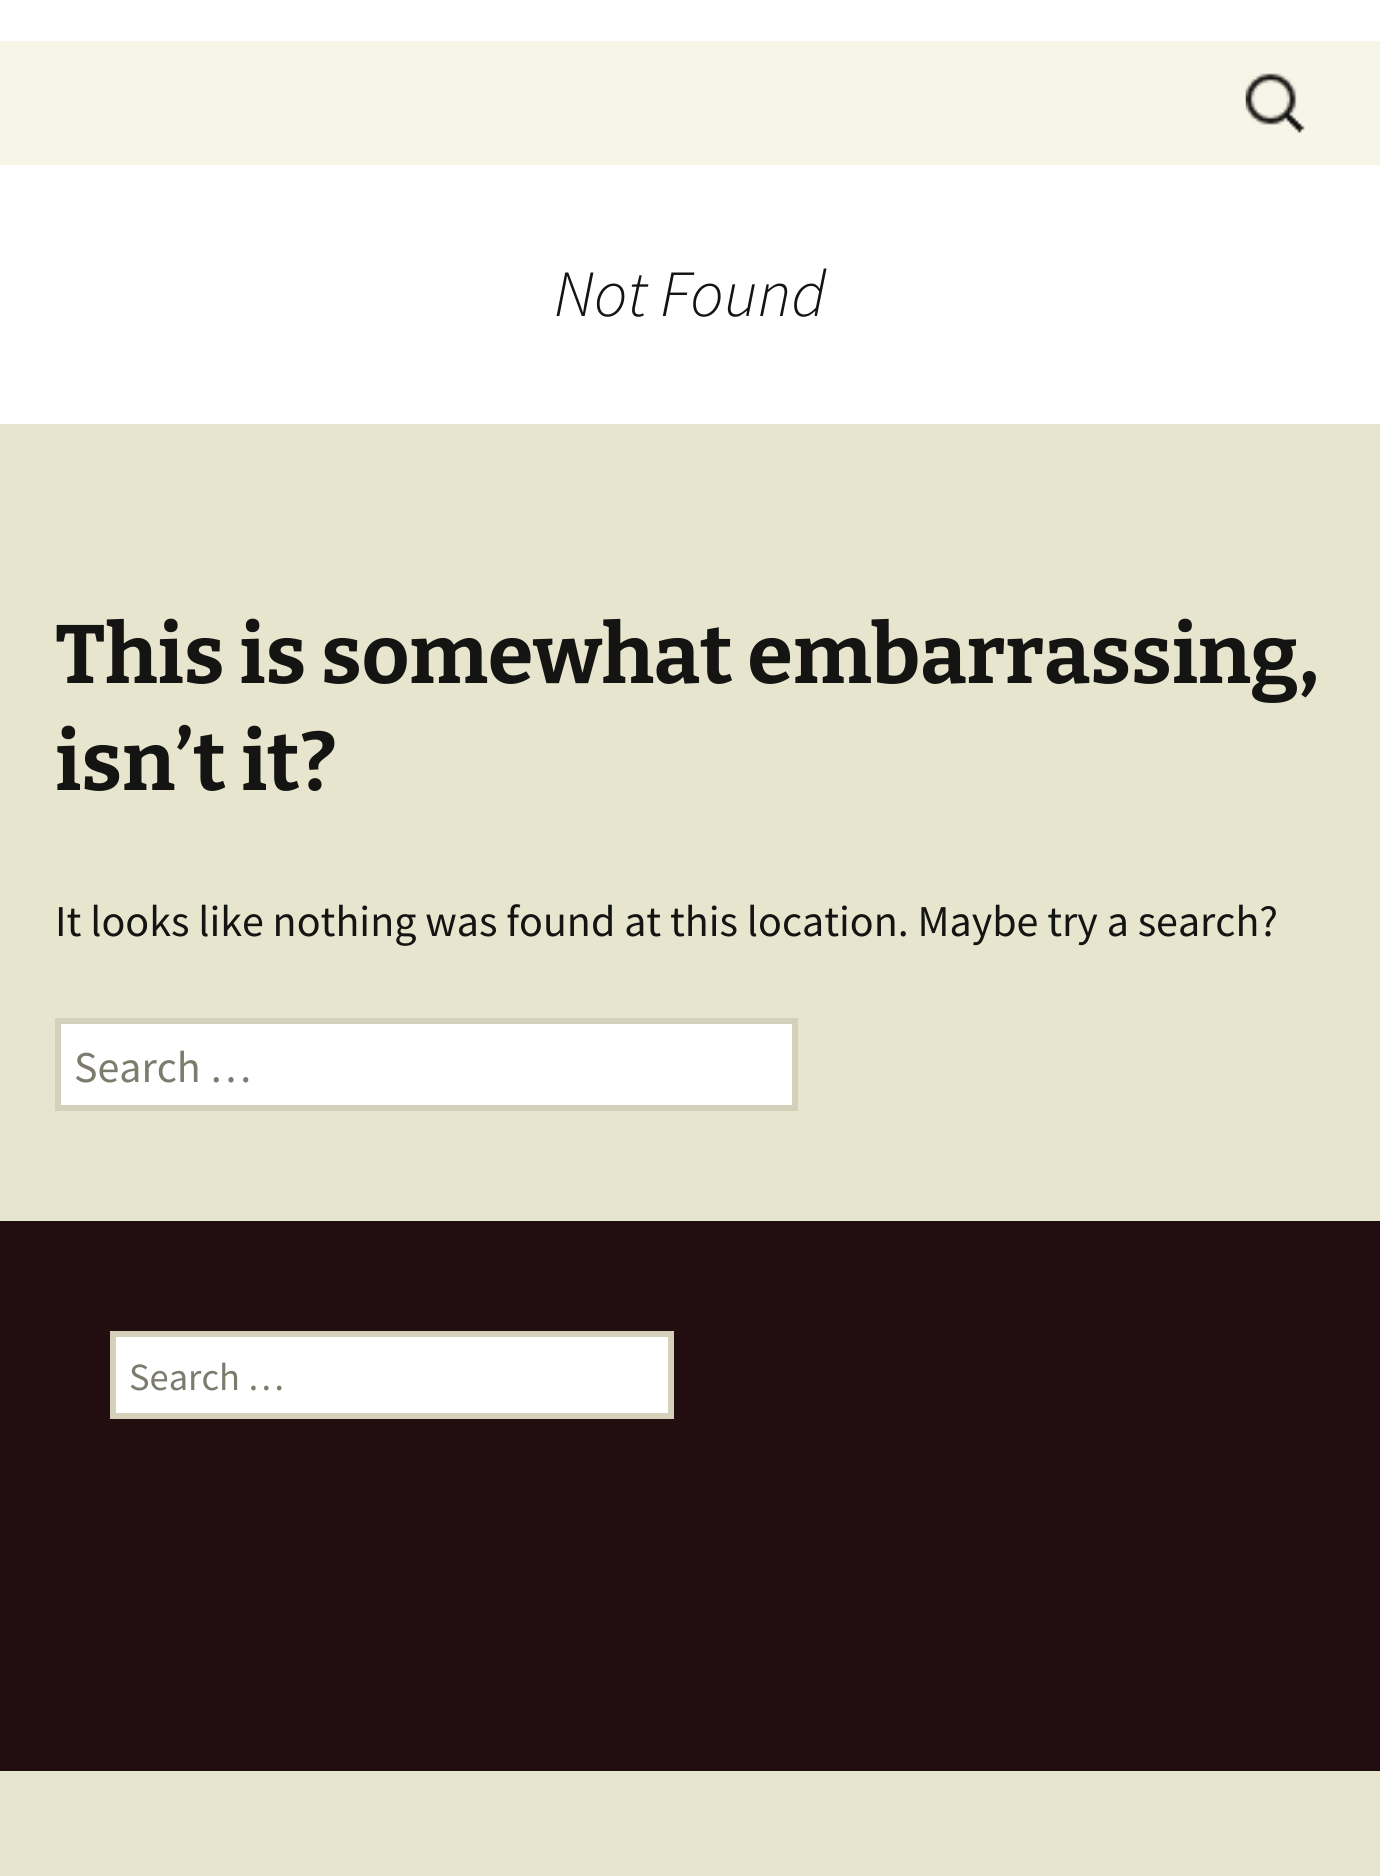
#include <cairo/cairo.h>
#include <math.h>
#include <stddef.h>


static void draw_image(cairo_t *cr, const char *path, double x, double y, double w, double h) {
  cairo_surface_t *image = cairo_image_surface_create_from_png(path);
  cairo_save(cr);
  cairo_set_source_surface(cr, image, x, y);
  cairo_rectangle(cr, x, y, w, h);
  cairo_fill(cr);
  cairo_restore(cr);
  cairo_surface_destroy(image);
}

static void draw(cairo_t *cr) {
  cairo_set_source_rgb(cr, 1, 1, 1);
  cairo_paint(cr);
  cairo_set_source_rgb(cr, 247 / 255.0, 245 / 255.0, 231 / 255.0);
  cairo_rectangle(cr, 0, 41, 1380, 124);
  cairo_fill(cr);
  draw_image(cr, "images/1.png", 1245, 73, 60, 60);
  cairo_set_source_rgb(cr, 232 / 255.0, 229 / 255.0, 206 / 255.0);
  cairo_rectangle(cr, 0, 424, 1380, 797);
  cairo_fill(cr);
  cairo_set_source_rgb(cr, 1, 1, 1);
  cairo_rectangle(cr, 58, 1021, 737, 87);
  cairo_fill_preserve(cr);
  cairo_set_source_rgb(cr, 212 / 255.0, 208 / 255.0, 186 / 255.0);
  cairo_set_line_width(cr, 6);
  cairo_stroke(cr);
  cairo_set_source_rgb(cr, 232 / 255.0, 229 / 255.0, 206 / 255.0);
  cairo_rectangle(cr, 0, 1771, 1380, 105);
  cairo_fill(cr);
  cairo_set_source_rgb(cr, 34 / 255.0, 14 / 255.0, 16 / 255.0);
  cairo_rectangle(cr, 0, 1221, 1380, 550);
  cairo_fill(cr);
  cairo_set_source_rgb(cr, 1, 1, 1);
  cairo_rectangle(cr, 113, 1334, 558, 82);
  cairo_fill_preserve(cr);
  cairo_set_source_rgb(cr, 212 / 255.0, 208 / 255.0, 186 / 255.0);
  cairo_stroke(cr);
  cairo_select_font_face(cr, "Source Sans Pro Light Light", CAIRO_FONT_SLANT_ITALIC, CAIRO_FONT_WEIGHT_NORMAL);
  cairo_set_font_size(cr, 66);
  cairo_set_source_rgb(cr, 20 / 255.0, 20 / 255.0, 18 / 255.0);
  cairo_move_to(cr, 554, 316);
  cairo_show_text(cr, "Not Found");
  cairo_select_font_face(cr, "Bitter Thin", CAIRO_FONT_SLANT_NORMAL, CAIRO_FONT_WEIGHT_NORMAL);
  cairo_set_font_size(cr, 82.5);
  cairo_move_to(cr, 55, 683);
  cairo_show_text(cr, "This is somewhat embarrassing,");
  cairo_move_to(cr, 55, 790);
  cairo_show_text(cr, "isn’t it?");
  cairo_select_font_face(cr, "Source Sans Pro", CAIRO_FONT_SLANT_NORMAL, CAIRO_FONT_WEIGHT_NORMAL);
  cairo_set_font_size(cr, 44);
  cairo_move_to(cr, 55, 936);
  cairo_show_text(cr, "It looks like nothing was found at this location. Maybe try a search?");
  cairo_set_source_rgb(cr, 125 / 255.0, 123 / 255.0, 109 / 255.0);
  cairo_move_to(cr, 74, 1082);
  cairo_show_text(cr, "Search …");
  cairo_set_font_size(cr, 38.5);
  cairo_move_to(cr, 129, 1390);
  cairo_show_text(cr, "Search …");
}

int main(void) {
  cairo_surface_t *surface = cairo_image_surface_create(CAIRO_FORMAT_RGB24, 1380, 1876);
  cairo_t *cr = cairo_create(surface);
  cairo_font_options_t *options = cairo_font_options_create();
  cairo_font_options_set_hint_metrics(options, CAIRO_HINT_METRICS_OFF);
  cairo_font_options_set_hint_style(options, CAIRO_HINT_STYLE_NONE);
  cairo_set_font_options(cr, options);
  cairo_set_miter_limit(cr, 4);
  draw(cr);
  cairo_surface_write_to_png(surface, "out.png");
  cairo_font_options_destroy(options);
  cairo_destroy(cr);
  cairo_surface_destroy(surface);
  return 0;
}
